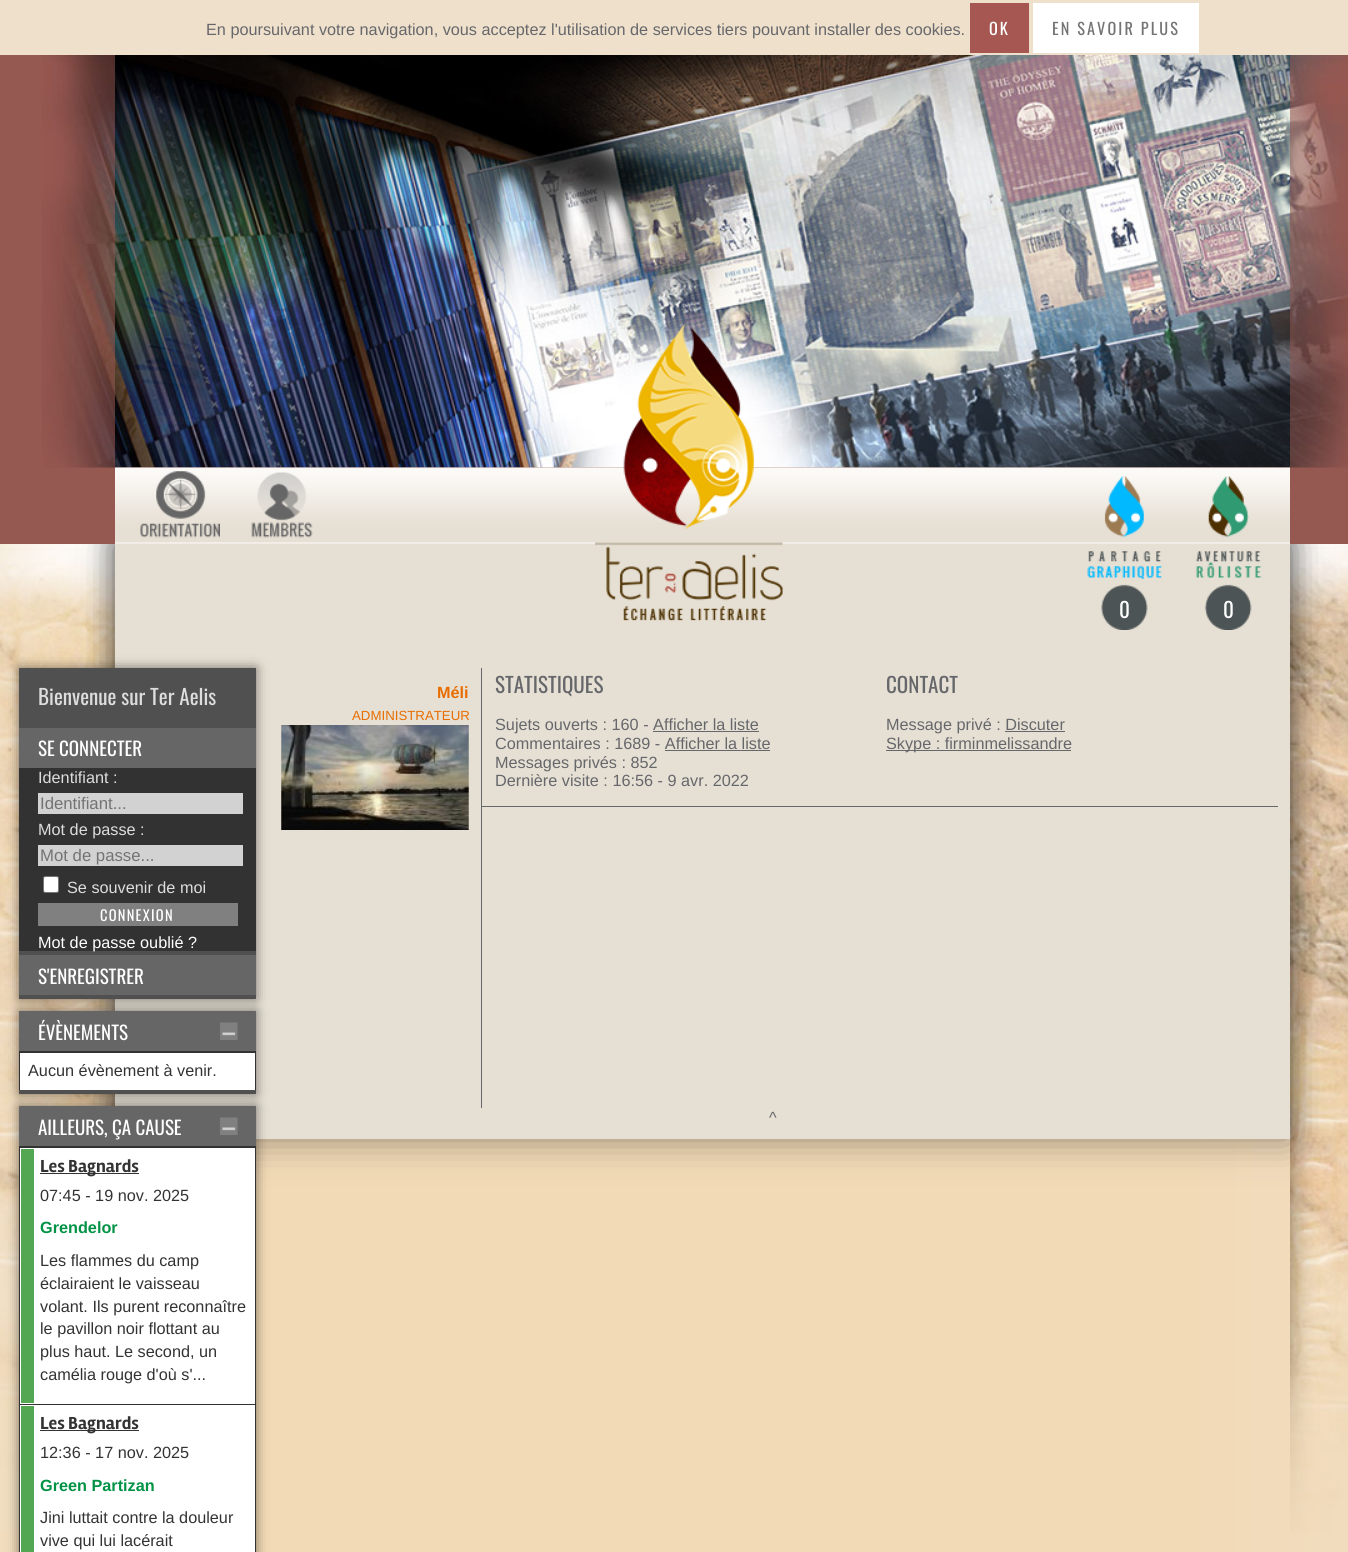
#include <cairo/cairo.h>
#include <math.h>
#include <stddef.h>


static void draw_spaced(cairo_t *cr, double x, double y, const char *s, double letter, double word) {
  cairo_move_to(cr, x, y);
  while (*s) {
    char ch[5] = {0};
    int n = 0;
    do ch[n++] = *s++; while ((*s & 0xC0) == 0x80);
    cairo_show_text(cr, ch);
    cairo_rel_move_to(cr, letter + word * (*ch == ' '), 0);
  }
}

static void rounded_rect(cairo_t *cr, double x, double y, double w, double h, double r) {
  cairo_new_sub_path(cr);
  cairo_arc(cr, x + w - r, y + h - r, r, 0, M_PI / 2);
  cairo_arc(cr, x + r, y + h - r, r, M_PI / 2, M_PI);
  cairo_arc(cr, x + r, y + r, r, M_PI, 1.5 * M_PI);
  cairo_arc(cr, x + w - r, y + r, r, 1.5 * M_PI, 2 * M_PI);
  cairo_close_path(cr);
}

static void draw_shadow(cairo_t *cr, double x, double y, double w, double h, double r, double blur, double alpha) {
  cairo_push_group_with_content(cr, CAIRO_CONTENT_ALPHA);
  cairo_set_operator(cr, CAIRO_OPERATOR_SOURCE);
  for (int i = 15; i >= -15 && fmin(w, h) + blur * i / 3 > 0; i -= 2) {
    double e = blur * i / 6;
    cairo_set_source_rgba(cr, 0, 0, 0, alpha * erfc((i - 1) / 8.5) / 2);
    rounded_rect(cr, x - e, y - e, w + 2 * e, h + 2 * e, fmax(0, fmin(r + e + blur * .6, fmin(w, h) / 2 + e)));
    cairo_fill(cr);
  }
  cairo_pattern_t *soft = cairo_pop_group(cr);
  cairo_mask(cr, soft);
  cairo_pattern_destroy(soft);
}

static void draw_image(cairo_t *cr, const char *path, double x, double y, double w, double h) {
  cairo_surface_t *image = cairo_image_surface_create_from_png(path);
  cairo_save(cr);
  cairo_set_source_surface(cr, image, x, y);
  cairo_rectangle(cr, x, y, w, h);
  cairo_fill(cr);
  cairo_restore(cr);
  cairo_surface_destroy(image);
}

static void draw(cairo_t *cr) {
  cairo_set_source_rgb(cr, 239 / 255.0, 224 / 255.0, 203 / 255.0);
  cairo_paint(cr);
  cairo_set_source_rgb(cr, 166 / 255.0, 87 / 255.0, 82 / 255.0);
  cairo_rectangle(cr, 970, 3, 59, 50);
  cairo_fill(cr);
  cairo_set_source_rgb(cr, 1, 1, 1);
  cairo_rectangle(cr, 1033, 3, 166, 50);
  cairo_fill(cr);
  draw_image(cr, "images/1.png", 0, 1139, 1348, 413);
  draw_image(cr, "images/11.png", 0, 544, 115, 988);
  draw_image(cr, "images/12.png", 1290, 544, 58, 989);
  cairo_set_source_rgb(cr, 0, 0, 0);
  draw_shadow(cr, 115, 543, 1175, 596, 0, 19, 0.4);
  cairo_set_source_rgb(cr, 149 / 255.0, 89 / 255.0, 81 / 255.0);
  cairo_rectangle(cr, 0, 55, 1348, 489);
  cairo_fill(cr);
  draw_image(cr, "images/2.png", 42, 55, 73, 413);
  draw_image(cr, "images/3.png", 115, 55, 1175, 413);
  draw_image(cr, "images/6.png", 115, 467, 1175, 76);
  cairo_set_source_rgb(cr, 241 / 255.0, 236 / 255.0, 230 / 255.0);
  cairo_rectangle(cr, 115, 543, 1175, 1);
  cairo_fill(cr);
  cairo_set_source_rgb(cr, 230 / 255.0, 224 / 255.0, 212 / 255.0);
  cairo_rectangle(cr, 115, 544, 1175, 595);
  cairo_fill(cr);
  draw_image(cr, "images/4.png", 595, 323, 188, 298);
  draw_image(cr, "images/5.png", 1290, 55, 58, 413);
  draw_image(cr, "images/7.png", 140, 471, 80, 67);
  draw_image(cr, "images/8.png", 251, 472, 62, 66);
  draw_image(cr, "images/9.png", 1087, 476, 75, 154);
  draw_image(cr, "images/10.png", 1196, 476, 66, 154);
  cairo_set_source_rgb(cr, 0, 0, 0);
  draw_shadow(cr, 19, 668, 237, 331, 0, 6, 0.5);
  cairo_set_source_rgb(cr, 50 / 255.0, 50 / 255.0, 50 / 255.0);
  cairo_rectangle(cr, 19, 768, 237, 183);
  cairo_fill(cr);
  cairo_set_source_rgb(cr, 80 / 255.0, 80 / 255.0, 80 / 255.0);
  cairo_rectangle(cr, 19, 668, 237, 60);
  cairo_fill(cr);
  cairo_rectangle(cr, 19, 951, 237, 4);
  cairo_fill(cr);
  cairo_set_source_rgb(cr, 102 / 255.0, 102 / 255.0, 102 / 255.0);
  cairo_rectangle(cr, 19, 728, 237, 40);
  cairo_fill(cr);
  cairo_set_source_rgb(cr, 210 / 255.0, 210 / 255.0, 210 / 255.0);
  cairo_rectangle(cr, 38, 793, 205, 21);
  cairo_fill(cr);
  cairo_rectangle(cr, 38, 845, 205, 21);
  cairo_fill(cr);
  cairo_set_source_rgb(cr, 1, 1, 1);
  rounded_rect(cr, 43.5, 876.5, 15, 16, 2);
  cairo_fill_preserve(cr);
  cairo_set_source_rgb(cr, 118 / 255.0, 118 / 255.0, 118 / 255.0);
  cairo_set_line_width(cr, 1);
  cairo_stroke(cr);
  cairo_set_source_rgb(cr, 128 / 255.0, 128 / 255.0, 128 / 255.0);
  cairo_rectangle(cr, 38, 903, 200, 23);
  cairo_fill(cr);
  cairo_set_source_rgb(cr, 80 / 255.0, 80 / 255.0, 80 / 255.0);
  cairo_rectangle(cr, 19, 995, 237, 4);
  cairo_fill(cr);
  cairo_set_source_rgb(cr, 102 / 255.0, 102 / 255.0, 102 / 255.0);
  cairo_rectangle(cr, 19, 955, 237, 40);
  cairo_fill(cr);
  cairo_set_source_rgb(cr, 0, 0, 0);
  draw_shadow(cr, 19, 1011, 237, 83, 0, 6, 0.5);
  cairo_set_source_rgb(cr, 50 / 255.0, 50 / 255.0, 50 / 255.0);
  cairo_rectangle(cr, 19, 1051, 237, 39);
  cairo_fill(cr);
  cairo_set_source_rgb(cr, 80 / 255.0, 80 / 255.0, 80 / 255.0);
  cairo_rectangle(cr, 19, 1090, 237, 4);
  cairo_fill(cr);
  cairo_set_source_rgb(cr, 102 / 255.0, 102 / 255.0, 102 / 255.0);
  cairo_rectangle(cr, 19, 1011, 237, 40);
  cairo_fill(cr);
  draw_image(cr, "images/13.png", 220, 1022, 18, 18);
  cairo_set_source_rgb(cr, 1, 1, 1);
  cairo_rectangle(cr, 20, 1053, 235, 37);
  cairo_fill(cr);
  cairo_set_source_rgb(cr, 0, 0, 0);
  draw_shadow(cr, 19, 1106, 237, 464, 0, 6, 0.5);
  cairo_set_source_rgb(cr, 50 / 255.0, 50 / 255.0, 50 / 255.0);
  cairo_rectangle(cr, 19, 1146, 237, 406);
  cairo_fill(cr);
  cairo_set_source_rgb(cr, 102 / 255.0, 102 / 255.0, 102 / 255.0);
  cairo_rectangle(cr, 19, 1106, 237, 40);
  cairo_fill(cr);
  draw_image(cr, "images/14.png", 220, 1117, 18, 18);
  cairo_set_source_rgb(cr, 1, 1, 1);
  cairo_rectangle(cr, 20, 1148, 235, 256);
  cairo_fill(cr);
  cairo_set_source_rgb(cr, 83 / 255.0, 166 / 255.0, 82 / 255.0);
  cairo_rectangle(cr, 21, 1149, 13, 254);
  cairo_fill(cr);
  cairo_set_source_rgb(cr, 51 / 255.0, 51 / 255.0, 51 / 255.0);
  cairo_rectangle(cr, 40, 1173, 99, 1);
  cairo_fill(cr);
  cairo_set_source_rgb(cr, 1, 1, 1);
  cairo_rectangle(cr, 20, 1405, 235, 147);
  cairo_fill(cr);
  cairo_set_source_rgb(cr, 83 / 255.0, 166 / 255.0, 82 / 255.0);
  cairo_rectangle(cr, 21, 1406, 13, 146);
  cairo_fill(cr);
  cairo_set_source_rgb(cr, 51 / 255.0, 51 / 255.0, 51 / 255.0);
  cairo_rectangle(cr, 40, 1430, 99, 1);
  cairo_fill(cr);
  draw_image(cr, "images/15.png", 281, 725, 188, 105);
  cairo_set_source_rgb(cr, 102 / 255.0, 103 / 255.0, 107 / 255.0);
  cairo_rectangle(cr, 481, 668, 1, 138);
  cairo_fill(cr);
  cairo_rectangle(cr, 653, 731, 106, 1);
  cairo_fill(cr);
  cairo_rectangle(cr, 665, 750, 105, 1);
  cairo_fill(cr);
  cairo_rectangle(cr, 1005, 731, 60, 1);
  cairo_fill(cr);
  cairo_rectangle(cr, 886, 750, 185, 1);
  cairo_fill(cr);
  cairo_rectangle(cr, 481, 806, 797, 1);
  cairo_fill(cr);
  cairo_rectangle(cr, 481, 806, 1, 302);
  cairo_fill(cr);
  cairo_select_font_face(cr, "Liberation Sans", CAIRO_FONT_SLANT_NORMAL, CAIRO_FONT_WEIGHT_NORMAL);
  cairo_set_font_size(cr, 16.25);
  cairo_move_to(cr, 206, 35);
  cairo_show_text(cr, "En poursuivant votre navigation, vous acceptez l'utilisation de services tiers pouvant installer des cookies.");
  cairo_select_font_face(cr, "Oswald", CAIRO_FONT_SLANT_NORMAL, CAIRO_FONT_WEIGHT_NORMAL);
  cairo_set_source_rgb(cr, 1, 1, 1);
  draw_spaced(cr, 989, 35, "OK", 2.1, 0);
  cairo_set_source_rgb(cr, 115 / 255.0, 115 / 255.0, 115 / 255.0);
  draw_spaced(cr, 1052, 35, "EN SAVOIR PLUS", 2.1, 0);
  cairo_set_font_size(cr, 21.1);
  cairo_set_source_rgb(cr, 1, 1, 1);
  cairo_move_to(cr, 1119, 618);
  cairo_show_text(cr, "0");
  cairo_move_to(cr, 1223, 618);
  cairo_show_text(cr, "0");
  cairo_set_source_rgb(cr, 221 / 255.0, 221 / 255.0, 221 / 255.0);
  cairo_move_to(cr, 38, 705);
  cairo_show_text(cr, "Bienvenue sur Ter Aelis");
  cairo_set_font_size(cr, 19);
  cairo_set_source_rgb(cr, 1, 1, 1);
  cairo_move_to(cr, 38, 756);
  cairo_show_text(cr, "SE CONNECTER");
  cairo_select_font_face(cr, "Liberation Sans", CAIRO_FONT_SLANT_NORMAL, CAIRO_FONT_WEIGHT_NORMAL);
  cairo_set_font_size(cr, 16.25);
  cairo_set_source_rgb(cr, 221 / 255.0, 221 / 255.0, 221 / 255.0);
  cairo_move_to(cr, 38, 783);
  cairo_show_text(cr, "Identifiant :");
  cairo_set_font_size(cr, 16.75);
  cairo_set_source_rgb(cr, 115 / 255.0, 115 / 255.0, 115 / 255.0);
  cairo_move_to(cr, 40, 809);
  cairo_show_text(cr, "Identifiant...");
  cairo_set_font_size(cr, 16.25);
  cairo_set_source_rgb(cr, 221 / 255.0, 221 / 255.0, 221 / 255.0);
  cairo_move_to(cr, 38, 835);
  cairo_show_text(cr, "Mot de passe :");
  cairo_set_font_size(cr, 16.75);
  cairo_set_source_rgb(cr, 115 / 255.0, 115 / 255.0, 115 / 255.0);
  cairo_move_to(cr, 40, 861);
  cairo_show_text(cr, "Mot de passe...");
  cairo_set_font_size(cr, 16.25);
  cairo_set_source_rgb(cr, 221 / 255.0, 221 / 255.0, 221 / 255.0);
  cairo_move_to(cr, 67, 893);
  cairo_show_text(cr, "Se souvenir de moi");
  cairo_select_font_face(cr, "Oswald", CAIRO_FONT_SLANT_NORMAL, CAIRO_FONT_WEIGHT_NORMAL);
  cairo_set_font_size(cr, 14.5);
  cairo_set_source_rgb(cr, 1, 1, 1);
  draw_spaced(cr, 100, 921, "CONNEXION", 1.25, 0);
  cairo_select_font_face(cr, "Liberation Sans", CAIRO_FONT_SLANT_NORMAL, CAIRO_FONT_WEIGHT_NORMAL);
  cairo_set_font_size(cr, 16.25);
  cairo_move_to(cr, 38, 948);
  cairo_show_text(cr, "Mot de passe oublié ?");
  cairo_select_font_face(cr, "Oswald", CAIRO_FONT_SLANT_NORMAL, CAIRO_FONT_WEIGHT_NORMAL);
  cairo_set_font_size(cr, 19);
  cairo_move_to(cr, 38, 984);
  cairo_show_text(cr, "S'ENREGISTRER");
  cairo_move_to(cr, 38, 1040);
  cairo_show_text(cr, "ÉVÈNEMENTS");
  cairo_select_font_face(cr, "Liberation Sans", CAIRO_FONT_SLANT_NORMAL, CAIRO_FONT_WEIGHT_NORMAL);
  cairo_set_font_size(cr, 16.25);
  cairo_set_source_rgb(cr, 51 / 255.0, 51 / 255.0, 51 / 255.0);
  cairo_move_to(cr, 28, 1076);
  cairo_show_text(cr, "Aucun évènement à venir.");
  cairo_select_font_face(cr, "Oswald", CAIRO_FONT_SLANT_NORMAL, CAIRO_FONT_WEIGHT_NORMAL);
  cairo_set_font_size(cr, 19);
  cairo_set_source_rgb(cr, 1, 1, 1);
  cairo_move_to(cr, 38, 1135);
  cairo_show_text(cr, "AILLEURS, ÇA CAUSE");
  cairo_select_font_face(cr, "Rambla", CAIRO_FONT_SLANT_NORMAL, CAIRO_FONT_WEIGHT_BOLD);
  cairo_set_font_size(cr, 18);
  cairo_set_source_rgb(cr, 51 / 255.0, 51 / 255.0, 51 / 255.0);
  cairo_move_to(cr, 40, 1172);
  cairo_show_text(cr, "Les Bagnards");
  cairo_select_font_face(cr, "Liberation Sans", CAIRO_FONT_SLANT_NORMAL, CAIRO_FONT_WEIGHT_NORMAL);
  cairo_set_font_size(cr, 16.25);
  cairo_move_to(cr, 40, 1201);
  cairo_show_text(cr, "07:45 - 19 nov. 2025");
  cairo_select_font_face(cr, "Liberation Sans", CAIRO_FONT_SLANT_NORMAL, CAIRO_FONT_WEIGHT_BOLD);
  cairo_set_source_rgb(cr, 0, 146 / 255.0, 69 / 255.0);
  cairo_move_to(cr, 40, 1233);
  cairo_show_text(cr, "Grendelor");
  cairo_select_font_face(cr, "Liberation Sans", CAIRO_FONT_SLANT_NORMAL, CAIRO_FONT_WEIGHT_NORMAL);
  cairo_set_source_rgb(cr, 51 / 255.0, 51 / 255.0, 51 / 255.0);
  cairo_move_to(cr, 40, 1266);
  cairo_show_text(cr, "Les flammes du camp");
  cairo_move_to(cr, 40, 1289);
  cairo_show_text(cr, "éclairaient le vaisseau");
  cairo_move_to(cr, 40, 1312);
  cairo_show_text(cr, "volant. Ils purent reconnaître");
  cairo_move_to(cr, 40, 1334);
  cairo_show_text(cr, "le pavillon noir flottant au");
  cairo_move_to(cr, 40, 1357);
  cairo_show_text(cr, "plus haut. Le second, un");
  cairo_move_to(cr, 40, 1380);
  cairo_show_text(cr, "camélia rouge d'où s'...");
  cairo_select_font_face(cr, "Rambla", CAIRO_FONT_SLANT_NORMAL, CAIRO_FONT_WEIGHT_BOLD);
  cairo_set_font_size(cr, 18);
  cairo_move_to(cr, 40, 1429);
  cairo_show_text(cr, "Les Bagnards");
  cairo_select_font_face(cr, "Liberation Sans", CAIRO_FONT_SLANT_NORMAL, CAIRO_FONT_WEIGHT_NORMAL);
  cairo_set_font_size(cr, 16.25);
  cairo_move_to(cr, 40, 1458);
  cairo_show_text(cr, "12:36 - 17 nov. 2025");
  cairo_select_font_face(cr, "Liberation Sans", CAIRO_FONT_SLANT_NORMAL, CAIRO_FONT_WEIGHT_BOLD);
  cairo_set_source_rgb(cr, 0, 146 / 255.0, 69 / 255.0);
  cairo_move_to(cr, 40, 1491);
  cairo_show_text(cr, "Green Partizan");
  cairo_select_font_face(cr, "Liberation Sans", CAIRO_FONT_SLANT_NORMAL, CAIRO_FONT_WEIGHT_NORMAL);
  cairo_set_source_rgb(cr, 51 / 255.0, 51 / 255.0, 51 / 255.0);
  cairo_move_to(cr, 40, 1523);
  cairo_show_text(cr, "Jini luttait contre la douleur");
  cairo_move_to(cr, 40, 1546);
  cairo_show_text(cr, "vive qui lui lacérait");
  cairo_select_font_face(cr, "Liberation Sans", CAIRO_FONT_SLANT_NORMAL, CAIRO_FONT_WEIGHT_BOLD);
  cairo_set_source_rgb(cr, 232 / 255.0, 109 / 255.0, 0);
  cairo_move_to(cr, 437, 698);
  cairo_show_text(cr, "Méli");
  cairo_select_font_face(cr, "Liberation Sans", CAIRO_FONT_SLANT_NORMAL, CAIRO_FONT_WEIGHT_NORMAL);
  cairo_set_font_size(cr, 13.25);
  cairo_move_to(cr, 352, 720);
  cairo_show_text(cr, "ADMINISTRATEUR");
  cairo_select_font_face(cr, "Oswald", CAIRO_FONT_SLANT_NORMAL, CAIRO_FONT_WEIGHT_NORMAL);
  cairo_set_font_size(cr, 21.1);
  cairo_set_source_rgb(cr, 102 / 255.0, 103 / 255.0, 107 / 255.0);
  cairo_move_to(cr, 495, 693);
  cairo_show_text(cr, "STATISTIQUES");
  cairo_select_font_face(cr, "Liberation Sans", CAIRO_FONT_SLANT_NORMAL, CAIRO_FONT_WEIGHT_NORMAL);
  cairo_set_font_size(cr, 16.25);
  cairo_move_to(cr, 495, 730);
  cairo_show_text(cr, "Sujets ouverts : 160 - Afficher la liste");
  cairo_move_to(cr, 495, 749);
  cairo_show_text(cr, "Commentaires : 1689 - Afficher la liste");
  cairo_move_to(cr, 495, 768);
  cairo_show_text(cr, "Messages privés : 852");
  cairo_move_to(cr, 495, 786);
  cairo_show_text(cr, "Dernière visite : 16:56 - 9 avr. 2022");
  cairo_select_font_face(cr, "Oswald", CAIRO_FONT_SLANT_NORMAL, CAIRO_FONT_WEIGHT_NORMAL);
  cairo_set_font_size(cr, 21.1);
  cairo_move_to(cr, 886, 693);
  cairo_show_text(cr, "CONTACT");
  cairo_select_font_face(cr, "Liberation Sans", CAIRO_FONT_SLANT_NORMAL, CAIRO_FONT_WEIGHT_NORMAL);
  cairo_set_font_size(cr, 16.25);
  cairo_move_to(cr, 886, 730);
  cairo_show_text(cr, "Message privé : Discuter");
  cairo_move_to(cr, 886, 749);
  cairo_show_text(cr, "Skype : firminmelissandre");
  cairo_move_to(cr, 769, 1123);
  cairo_show_text(cr, "^");
}

int main(void) {
  cairo_surface_t *surface = cairo_image_surface_create(CAIRO_FORMAT_RGB24, 1348, 1552);
  cairo_t *cr = cairo_create(surface);
  cairo_font_options_t *options = cairo_font_options_create();
  cairo_font_options_set_hint_metrics(options, CAIRO_HINT_METRICS_OFF);
  cairo_font_options_set_hint_style(options, CAIRO_HINT_STYLE_NONE);
  cairo_set_font_options(cr, options);
  cairo_set_miter_limit(cr, 4);
  draw(cr);
  cairo_surface_write_to_png(surface, "out.png");
  cairo_font_options_destroy(options);
  cairo_destroy(cr);
  cairo_surface_destroy(surface);
  return 0;
}
